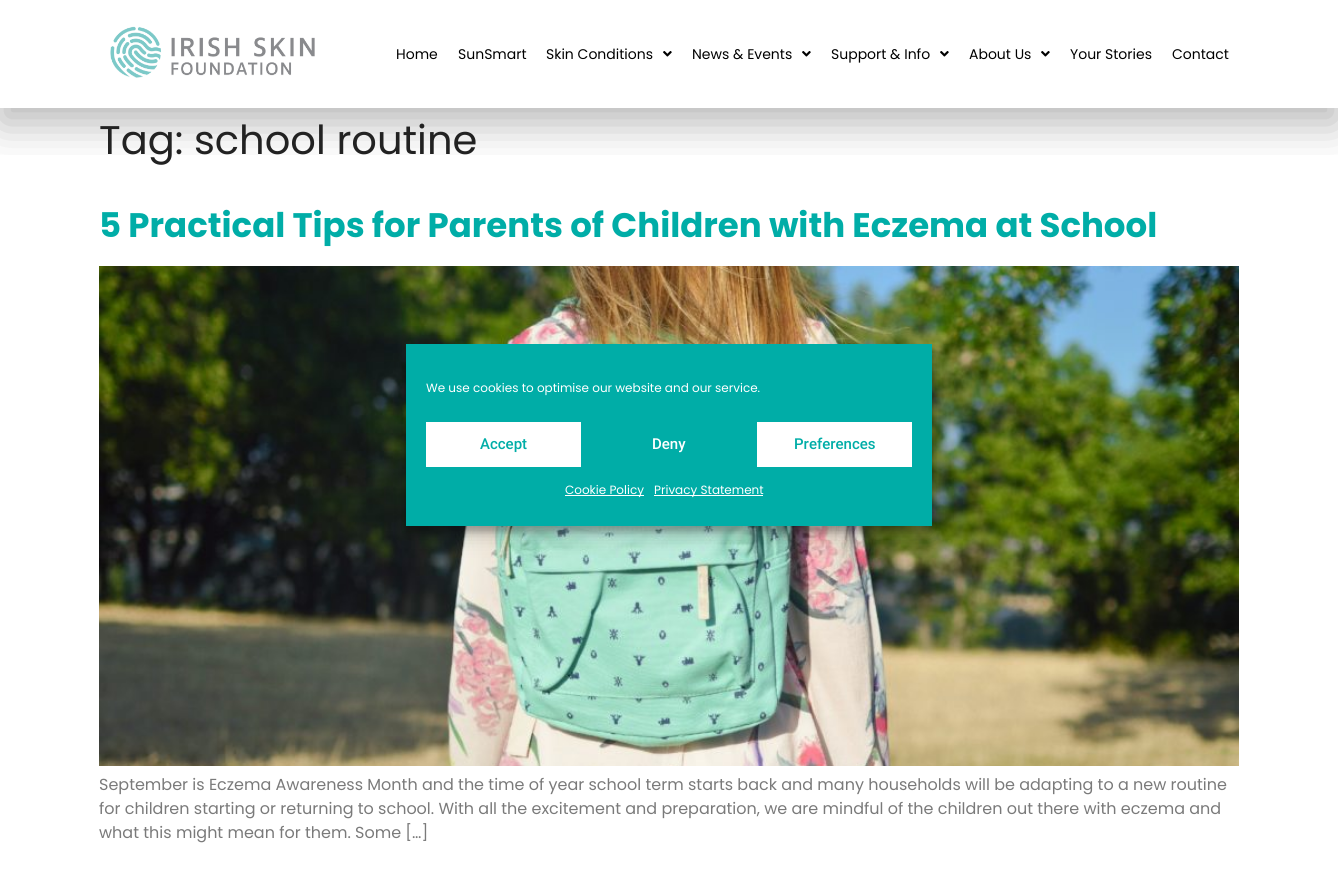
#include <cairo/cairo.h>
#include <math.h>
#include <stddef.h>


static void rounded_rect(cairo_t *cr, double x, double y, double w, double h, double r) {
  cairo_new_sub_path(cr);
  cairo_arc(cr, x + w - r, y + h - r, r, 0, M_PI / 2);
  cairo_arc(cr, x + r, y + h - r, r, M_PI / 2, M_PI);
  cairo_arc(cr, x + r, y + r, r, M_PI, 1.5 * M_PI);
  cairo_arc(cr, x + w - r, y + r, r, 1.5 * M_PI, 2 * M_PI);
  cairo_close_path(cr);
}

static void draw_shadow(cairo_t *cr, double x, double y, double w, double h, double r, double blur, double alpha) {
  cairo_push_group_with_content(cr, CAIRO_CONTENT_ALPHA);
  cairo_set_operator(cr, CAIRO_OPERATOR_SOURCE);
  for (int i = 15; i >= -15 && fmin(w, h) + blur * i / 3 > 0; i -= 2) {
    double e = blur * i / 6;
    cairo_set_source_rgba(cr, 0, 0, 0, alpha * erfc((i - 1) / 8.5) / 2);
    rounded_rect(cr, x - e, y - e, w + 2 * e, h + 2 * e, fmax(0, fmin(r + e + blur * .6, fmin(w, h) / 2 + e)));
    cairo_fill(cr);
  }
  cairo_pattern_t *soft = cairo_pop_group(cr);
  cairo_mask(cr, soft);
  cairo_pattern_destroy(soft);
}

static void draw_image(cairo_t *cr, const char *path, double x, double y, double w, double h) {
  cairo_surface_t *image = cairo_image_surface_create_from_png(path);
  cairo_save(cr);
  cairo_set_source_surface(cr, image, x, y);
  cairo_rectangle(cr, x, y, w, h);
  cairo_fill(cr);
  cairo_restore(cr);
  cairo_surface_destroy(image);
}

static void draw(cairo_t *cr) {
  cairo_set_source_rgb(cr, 1, 1, 1);
  cairo_paint(cr);
  cairo_save(cr);
  cairo_rectangle(cr, 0, 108, 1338, 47);
  cairo_clip(cr);
  cairo_set_source_rgb(cr, 0, 0, 0);
  draw_shadow(cr, 0, 15, 1338, 108, 0, 21.5, 0.29);
  cairo_restore(cr);
  draw_image(cr, "images/1.png", 110, 26, 205, 52);
  draw_image(cr, "images/2.png", 663, 51, 9, 6);
  draw_image(cr, "images/2.png", 802, 51, 9, 6);
  draw_image(cr, "images/2.png", 940, 51, 9, 6);
  draw_image(cr, "images/2.png", 1041, 51, 9, 6);
  draw_image(cr, "images/3.png", 99, 266, 1140, 500);
  cairo_set_source_rgb(cr, 0, 0, 0);
  draw_shadow(cr, 406, 350, 526, 182, 0, 3, 0.23);
  draw_shadow(cr, 406, 354, 526, 182, 0, 10, 0.19);
  cairo_set_source_rgb(cr, 0, 173 / 255.0, 167 / 255.0);
  cairo_rectangle(cr, 406, 344, 526, 182);
  cairo_fill(cr);
  cairo_set_source_rgb(cr, 1, 1, 1);
  cairo_rectangle(cr, 426, 422, 155, 45);
  cairo_fill(cr);
  cairo_rectangle(cr, 757, 422, 155, 45);
  cairo_fill(cr);
  cairo_rectangle(cr, 565, 495, 79, 1);
  cairo_fill(cr);
  cairo_rectangle(cr, 654, 495, 109, 1);
  cairo_fill(cr);
  cairo_select_font_face(cr, "Poppins", CAIRO_FONT_SLANT_NORMAL, CAIRO_FONT_WEIGHT_NORMAL);
  cairo_set_font_size(cr, 14);
  cairo_set_source_rgb(cr, 0, 0, 0);
  cairo_move_to(cr, 396, 59);
  cairo_show_text(cr, "Home");
  cairo_move_to(cr, 458, 59);
  cairo_show_text(cr, "SunSmart");
  cairo_move_to(cr, 546, 59);
  cairo_show_text(cr, "Skin Conditions");
  cairo_move_to(cr, 692, 59);
  cairo_show_text(cr, "News & Events");
  cairo_move_to(cr, 831, 59);
  cairo_show_text(cr, "Support & Info");
  cairo_move_to(cr, 969, 59);
  cairo_show_text(cr, "About Us");
  cairo_move_to(cr, 1070, 59);
  cairo_show_text(cr, "Your Stories");
  cairo_move_to(cr, 1172, 59);
  cairo_show_text(cr, "Contact");
  cairo_set_font_size(cr, 40);
  cairo_set_source_rgb(cr, 34 / 255.0, 34 / 255.0, 34 / 255.0);
  cairo_move_to(cr, 99, 154);
  cairo_show_text(cr, "Tag: school routine");
  cairo_select_font_face(cr, "Poppins", CAIRO_FONT_SLANT_NORMAL, CAIRO_FONT_WEIGHT_BOLD);
  cairo_set_font_size(cr, 34);
  cairo_set_source_rgb(cr, 0, 173 / 255.0, 167 / 255.0);
  cairo_move_to(cr, 99, 237);
  cairo_show_text(cr, "5 Practical Tips for Parents of Children with Eczema at School");
  cairo_select_font_face(cr, "Poppins", CAIRO_FONT_SLANT_NORMAL, CAIRO_FONT_WEIGHT_NORMAL);
  cairo_set_font_size(cr, 16);
  cairo_set_source_rgb(cr, 122 / 255.0, 122 / 255.0, 122 / 255.0);
  cairo_move_to(cr, 99, 790);
  cairo_show_text(cr, "September is Eczema Awareness Month and the time of year school term starts back and many households will be adapting to a new routine");
  cairo_move_to(cr, 99, 814);
  cairo_show_text(cr, "for children starting or returning to school. With all the excitement and preparation, we are mindful of the children out there with eczema and");
  cairo_move_to(cr, 99, 838);
  cairo_show_text(cr, "what this might mean for them. Some […]");
  cairo_set_font_size(cr, 12);
  cairo_set_source_rgb(cr, 1, 1, 1);
  cairo_move_to(cr, 426, 392);
  cairo_show_text(cr, "We use cookies to optimise our website and our service.");
  cairo_select_font_face(cr, "Roboto Medium", CAIRO_FONT_SLANT_NORMAL, CAIRO_FONT_WEIGHT_NORMAL);
  cairo_set_font_size(cr, 15);
  cairo_set_source_rgb(cr, 0, 173 / 255.0, 167 / 255.0);
  cairo_move_to(cr, 480, 449);
  cairo_show_text(cr, "Accept");
  cairo_set_source_rgb(cr, 1, 1, 1);
  cairo_move_to(cr, 652, 449);
  cairo_show_text(cr, "Deny");
  cairo_set_source_rgb(cr, 0, 173 / 255.0, 167 / 255.0);
  cairo_move_to(cr, 794, 449);
  cairo_show_text(cr, "Preferences");
  cairo_select_font_face(cr, "Poppins", CAIRO_FONT_SLANT_NORMAL, CAIRO_FONT_WEIGHT_NORMAL);
  cairo_set_font_size(cr, 12);
  cairo_set_source_rgb(cr, 1, 1, 1);
  cairo_move_to(cr, 565, 494);
  cairo_show_text(cr, "Cookie Policy");
  cairo_move_to(cr, 654, 494);
  cairo_show_text(cr, "Privacy Statement");
}

int main(void) {
  cairo_surface_t *surface = cairo_image_surface_create(CAIRO_FORMAT_RGB24, 1338, 869);
  cairo_t *cr = cairo_create(surface);
  cairo_font_options_t *options = cairo_font_options_create();
  cairo_font_options_set_hint_metrics(options, CAIRO_HINT_METRICS_OFF);
  cairo_font_options_set_hint_style(options, CAIRO_HINT_STYLE_NONE);
  cairo_set_font_options(cr, options);
  cairo_set_miter_limit(cr, 4);
  draw(cr);
  cairo_surface_write_to_png(surface, "out.png");
  cairo_font_options_destroy(options);
  cairo_destroy(cr);
  cairo_surface_destroy(surface);
  return 0;
}
